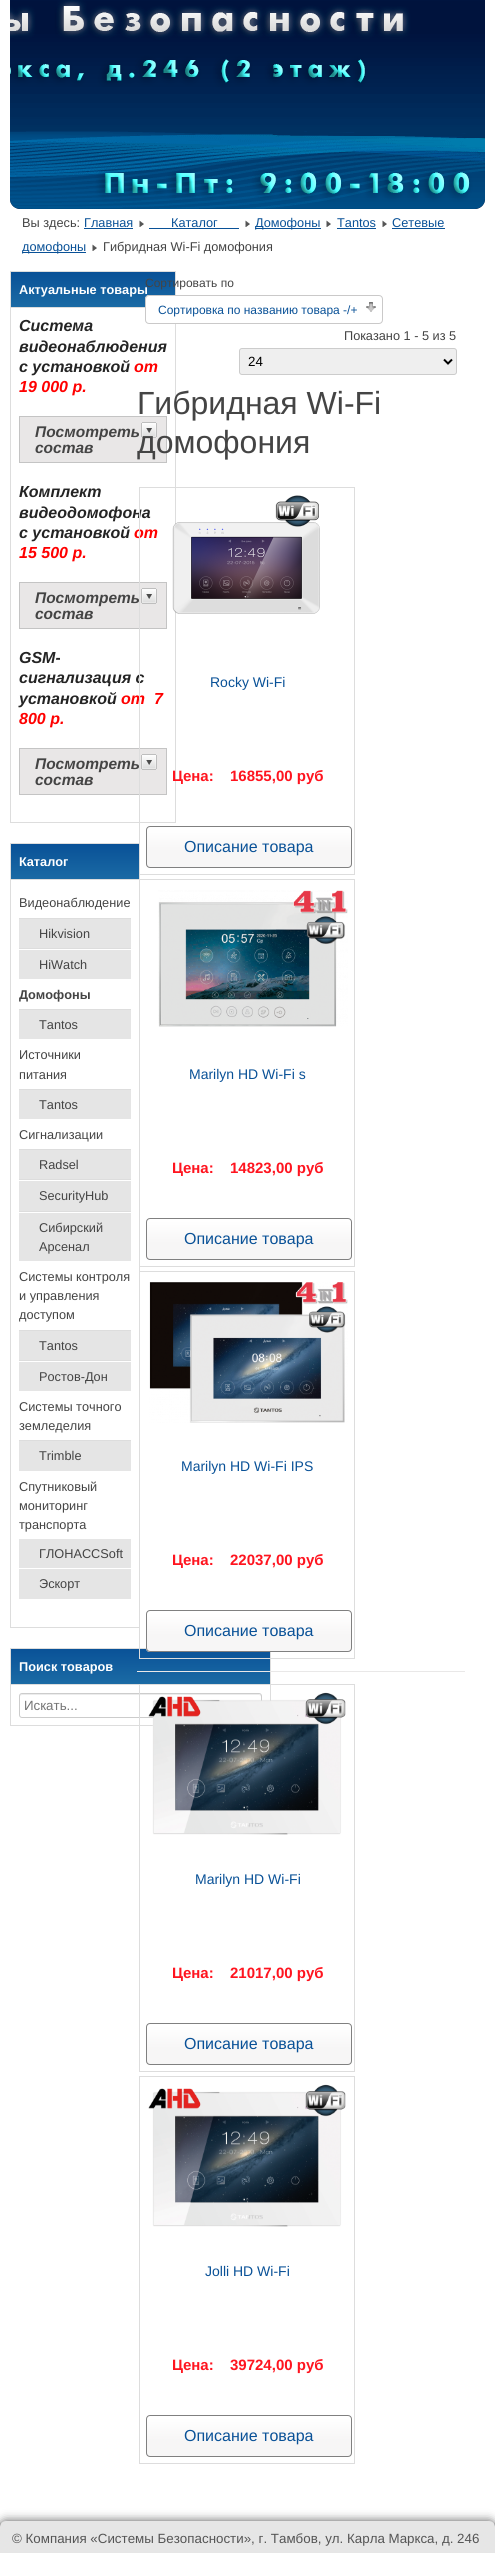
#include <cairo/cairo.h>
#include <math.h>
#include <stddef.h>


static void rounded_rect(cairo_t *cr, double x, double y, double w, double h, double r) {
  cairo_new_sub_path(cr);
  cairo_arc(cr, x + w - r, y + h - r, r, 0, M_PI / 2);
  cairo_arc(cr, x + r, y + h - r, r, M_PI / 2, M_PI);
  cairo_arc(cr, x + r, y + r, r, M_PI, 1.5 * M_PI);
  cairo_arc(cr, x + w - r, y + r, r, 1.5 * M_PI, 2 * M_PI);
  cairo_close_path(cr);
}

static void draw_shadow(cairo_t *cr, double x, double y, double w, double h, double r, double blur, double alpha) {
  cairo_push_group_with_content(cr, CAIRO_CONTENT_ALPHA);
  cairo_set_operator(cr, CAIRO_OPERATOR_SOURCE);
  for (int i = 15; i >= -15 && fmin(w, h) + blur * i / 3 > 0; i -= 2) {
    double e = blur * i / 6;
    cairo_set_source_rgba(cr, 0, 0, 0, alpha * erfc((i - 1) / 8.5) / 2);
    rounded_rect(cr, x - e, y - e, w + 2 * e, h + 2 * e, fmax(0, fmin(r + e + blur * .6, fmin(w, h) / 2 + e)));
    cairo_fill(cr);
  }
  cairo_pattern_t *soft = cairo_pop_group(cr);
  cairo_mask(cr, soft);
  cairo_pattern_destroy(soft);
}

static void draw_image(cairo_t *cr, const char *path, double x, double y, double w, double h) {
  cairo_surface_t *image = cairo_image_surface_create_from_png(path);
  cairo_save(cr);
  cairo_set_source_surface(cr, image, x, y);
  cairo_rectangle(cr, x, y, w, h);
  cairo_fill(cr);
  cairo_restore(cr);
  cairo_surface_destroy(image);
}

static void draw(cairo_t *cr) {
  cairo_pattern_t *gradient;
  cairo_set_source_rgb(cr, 1, 1, 1);
  cairo_paint(cr);
  cairo_set_source_rgb(cr, 85 / 255.0, 85 / 255.0, 85 / 255.0);
  draw_shadow(cr, 0, -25, 495, 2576, 10, 5, 1);
  cairo_set_source_rgb(cr, 1, 1, 1);
  rounded_rect(cr, 0, -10, 495, 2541, 10);
  cairo_fill(cr);
  cairo_set_source_rgb(cr, 12 / 255.0, 26 / 255.0, 62 / 255.0);
  rounded_rect(cr, 10, -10, 475, 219, 10);
  cairo_fill(cr);
  draw_image(cr, "images/1.png", 10, 0, 475, 209);
  cairo_set_source_rgb(cr, 9 / 255.0, 81 / 255.0, 151 / 255.0);
  cairo_rectangle(cr, 84, 228, 49, 1);
  cairo_fill(cr);
  draw_image(cr, "images/2.png", 139, 220, 5, 7);
  cairo_rectangle(cr, 149, 228, 90, 1);
  cairo_fill(cr);
  draw_image(cr, "images/2.png", 245, 220, 5, 7);
  cairo_rectangle(cr, 255, 228, 66, 1);
  cairo_fill(cr);
  draw_image(cr, "images/2.png", 326, 220, 5, 7);
  cairo_rectangle(cr, 337, 228, 39, 1);
  cairo_fill(cr);
  draw_image(cr, "images/2.png", 382, 220, 5, 7);
  cairo_rectangle(cr, 392, 228, 53, 1);
  cairo_fill(cr);
  cairo_rectangle(cr, 22, 252, 64, 1);
  cairo_fill(cr);
  draw_image(cr, "images/2.png", 92, 244, 5, 7);
  cairo_set_source_rgb(cr, 221 / 255.0, 221 / 255.0, 221 / 255.0);
  cairo_rectangle(cr, 10, 271, 166, 1);
  cairo_fill(cr);
  cairo_rectangle(cr, 175, 271, 1, 552);
  cairo_fill(cr);
  cairo_rectangle(cr, 10, 822, 166, 1);
  cairo_fill(cr);
  cairo_rectangle(cr, 10, 271, 1, 552);
  cairo_fill(cr);
  gradient = cairo_pattern_create_linear(93, 272, 93, 308);
  cairo_pattern_add_color_stop_rgba(gradient, 0, 9 / 255.0, 81 / 255.0, 151 / 255.0, 1);
  cairo_pattern_add_color_stop_rgba(gradient, 1, 27 / 255.0, 107 / 255.0, 165 / 255.0, 1);
  cairo_set_source(cr, gradient);
  cairo_pattern_destroy(gradient);
  cairo_rectangle(cr, 11, 272, 164, 35);
  cairo_fill(cr);
  cairo_set_source_rgb(cr, 221 / 255.0, 221 / 255.0, 221 / 255.0);
  cairo_rectangle(cr, 10, 307, 135, 1);
  cairo_fill(cr);
  cairo_set_source_rgb(cr, 233 / 255.0, 231 / 255.0, 231 / 255.0);
  cairo_rectangle(cr, 20, 417, 146, 45);
  cairo_fill(cr);
  draw_image(cr, "images/3.png", 141, 422, 16, 16);
  cairo_rectangle(cr, 19.5, 416.5, 147, 46);
  cairo_set_source_rgb(cr, 196 / 255.0, 196 / 255.0, 196 / 255.0);
  cairo_set_line_width(cr, 1);
  cairo_stroke(cr);
  cairo_set_source_rgb(cr, 233 / 255.0, 231 / 255.0, 231 / 255.0);
  cairo_rectangle(cr, 20, 583, 146, 45);
  cairo_fill(cr);
  draw_image(cr, "images/3.png", 141, 588, 16, 16);
  cairo_rectangle(cr, 19.5, 582.5, 147, 46);
  cairo_set_source_rgb(cr, 196 / 255.0, 196 / 255.0, 196 / 255.0);
  cairo_stroke(cr);
  cairo_set_source_rgb(cr, 233 / 255.0, 231 / 255.0, 231 / 255.0);
  cairo_rectangle(cr, 20, 749, 146, 45);
  cairo_fill(cr);
  draw_image(cr, "images/3.png", 141, 754, 16, 16);
  cairo_rectangle(cr, 19.5, 748.5, 147, 46);
  cairo_set_source_rgb(cr, 196 / 255.0, 196 / 255.0, 196 / 255.0);
  cairo_stroke(cr);
  cairo_set_source_rgb(cr, 221 / 255.0, 221 / 255.0, 221 / 255.0);
  cairo_rectangle(cr, 10, 843, 130, 1);
  cairo_fill(cr);
  cairo_rectangle(cr, 139, 875, 1, 396);
  cairo_fill(cr);
  cairo_rectangle(cr, 10, 1627, 130, 1);
  cairo_fill(cr);
  cairo_rectangle(cr, 10, 843, 1, 785);
  cairo_fill(cr);
  gradient = cairo_pattern_create_linear(75, 844, 75, 880);
  cairo_pattern_add_color_stop_rgba(gradient, 0, 9 / 255.0, 81 / 255.0, 151 / 255.0, 1);
  cairo_pattern_add_color_stop_rgba(gradient, 1, 27 / 255.0, 107 / 255.0, 165 / 255.0, 1);
  cairo_set_source(cr, gradient);
  cairo_pattern_destroy(gradient);
  cairo_rectangle(cr, 11, 844, 128, 35);
  cairo_fill(cr);
  cairo_set_source_rgb(cr, 221 / 255.0, 221 / 255.0, 221 / 255.0);
  cairo_rectangle(cr, 10, 879, 130, 1);
  cairo_fill(cr);
  cairo_rectangle(cr, 19, 918, 112, 1);
  cairo_fill(cr);
  cairo_set_source_rgb(cr, 229 / 255.0, 229 / 255.0, 229 / 255.0);
  cairo_rectangle(cr, 19, 919, 112, 29);
  cairo_fill(cr);
  cairo_set_source_rgb(cr, 221 / 255.0, 221 / 255.0, 221 / 255.0);
  cairo_rectangle(cr, 19, 948, 112, 1);
  cairo_fill(cr);
  cairo_set_source_rgb(cr, 229 / 255.0, 229 / 255.0, 229 / 255.0);
  cairo_rectangle(cr, 19, 950, 112, 29);
  cairo_fill(cr);
  cairo_set_source_rgb(cr, 221 / 255.0, 221 / 255.0, 221 / 255.0);
  cairo_rectangle(cr, 19, 1009, 112, 1);
  cairo_fill(cr);
  cairo_set_source_rgb(cr, 229 / 255.0, 229 / 255.0, 229 / 255.0);
  cairo_rectangle(cr, 19, 1010, 112, 29);
  cairo_fill(cr);
  cairo_set_source_rgb(cr, 221 / 255.0, 221 / 255.0, 221 / 255.0);
  cairo_rectangle(cr, 19, 1089, 112, 1);
  cairo_fill(cr);
  cairo_set_source_rgb(cr, 229 / 255.0, 229 / 255.0, 229 / 255.0);
  cairo_rectangle(cr, 19, 1090, 112, 29);
  cairo_fill(cr);
  cairo_set_source_rgb(cr, 221 / 255.0, 221 / 255.0, 221 / 255.0);
  cairo_rectangle(cr, 19, 1149, 112, 1);
  cairo_fill(cr);
  cairo_set_source_rgb(cr, 229 / 255.0, 229 / 255.0, 229 / 255.0);
  cairo_rectangle(cr, 19, 1150, 112, 29);
  cairo_fill(cr);
  cairo_set_source_rgb(cr, 221 / 255.0, 221 / 255.0, 221 / 255.0);
  cairo_rectangle(cr, 19, 1179, 112, 1);
  cairo_fill(cr);
  cairo_set_source_rgb(cr, 229 / 255.0, 229 / 255.0, 229 / 255.0);
  cairo_rectangle(cr, 19, 1181, 112, 30);
  cairo_fill(cr);
  cairo_set_source_rgb(cr, 221 / 255.0, 221 / 255.0, 221 / 255.0);
  cairo_rectangle(cr, 19, 1211, 112, 1);
  cairo_fill(cr);
  cairo_set_source_rgb(cr, 229 / 255.0, 229 / 255.0, 229 / 255.0);
  cairo_rectangle(cr, 19, 1213, 112, 48);
  cairo_fill(cr);
  cairo_set_source_rgb(cr, 221 / 255.0, 221 / 255.0, 221 / 255.0);
  cairo_rectangle(cr, 19, 1330, 112, 1);
  cairo_fill(cr);
  cairo_set_source_rgb(cr, 229 / 255.0, 229 / 255.0, 229 / 255.0);
  cairo_rectangle(cr, 19, 1331, 112, 29);
  cairo_fill(cr);
  cairo_set_source_rgb(cr, 221 / 255.0, 221 / 255.0, 221 / 255.0);
  cairo_rectangle(cr, 19, 1360, 112, 1);
  cairo_fill(cr);
  cairo_set_source_rgb(cr, 229 / 255.0, 229 / 255.0, 229 / 255.0);
  cairo_rectangle(cr, 19, 1362, 112, 29);
  cairo_fill(cr);
  cairo_set_source_rgb(cr, 221 / 255.0, 221 / 255.0, 221 / 255.0);
  cairo_rectangle(cr, 19, 1440, 112, 1);
  cairo_fill(cr);
  cairo_set_source_rgb(cr, 229 / 255.0, 229 / 255.0, 229 / 255.0);
  cairo_rectangle(cr, 19, 1441, 112, 30);
  cairo_fill(cr);
  cairo_rectangle(cr, 19, 1539, 112, 29);
  cairo_fill(cr);
  cairo_rectangle(cr, 19, 1569, 112, 30);
  cairo_fill(cr);
  cairo_set_source_rgb(cr, 221 / 255.0, 221 / 255.0, 221 / 255.0);
  cairo_rectangle(cr, 10, 1648, 137, 1);
  cairo_fill(cr);
  cairo_rectangle(cr, 270, 1648, 1, 53);
  cairo_fill(cr);
  cairo_rectangle(cr, 10, 1725, 144, 1);
  cairo_fill(cr);
  cairo_rectangle(cr, 10, 1648, 1, 78);
  cairo_fill(cr);
  gradient = cairo_pattern_create_linear(141, 1648, 141, 1684);
  cairo_pattern_add_color_stop_rgba(gradient, 0, 9 / 255.0, 81 / 255.0, 151 / 255.0, 1);
  cairo_pattern_add_color_stop_rgba(gradient, 1, 27 / 255.0, 107 / 255.0, 165 / 255.0, 1);
  cairo_set_source(cr, gradient);
  cairo_pattern_destroy(gradient);
  cairo_rectangle(cr, 11, 1649, 259, 35);
  cairo_fill(cr);
  cairo_set_source_rgb(cr, 221 / 255.0, 221 / 255.0, 221 / 255.0);
  cairo_rectangle(cr, 10, 1684, 129, 1);
  cairo_fill(cr);
  cairo_set_source_rgb(cr, 236 / 255.0, 236 / 255.0, 236 / 255.0);
  cairo_new_path(cr);
  cairo_move_to(cr, 22, 1695);
  cairo_line_to(cr, 259, 1695);
  cairo_curve_to(cr, 260, 1695, 261, 1696, 261, 1697);
  cairo_line_to(cr, 261, 1695);
  cairo_line_to(cr, 259, 1694);
  cairo_line_to(cr, 22, 1694);
  cairo_curve_to(cr, 20, 1694, 20, 1696, 20, 1697);
  cairo_curve_to(cr, 20, 1696, 21, 1695, 22, 1695);
  cairo_close_path(cr);
  cairo_fill(cr);
  rounded_rect(cr, 19.5, 1693.5, 242, 24, 2.5);
  cairo_set_source_rgb(cr, 204 / 255.0, 204 / 255.0, 204 / 255.0);
  cairo_stroke(cr);
  cairo_set_source_rgb(cr, 1, 1, 1);
  rounded_rect(cr, 145, 295, 238, 29, 4);
  cairo_fill(cr);
  draw_image(cr, "images/4.png", 366, 302, 10, 10);
  cairo_set_source_rgb(cr, 239 / 255.0, 239 / 255.0, 239 / 255.0);
  rounded_rect(cr, 239.5, 348.5, 217, 26, 2.5);
  cairo_fill_preserve(cr);
  cairo_set_source_rgb(cr, 204 / 255.0, 204 / 255.0, 204 / 255.0);
  cairo_stroke(cr);
  cairo_new_path(cr);
  cairo_move_to(cr, 444, 359.5);
  cairo_line_to(cr, 448, 363.5);
  cairo_line_to(cr, 452, 359.5);
  cairo_set_source_rgb(cr, 0, 0, 0);
  cairo_set_line_width(cr, 2);
  cairo_stroke(cr);
  cairo_rectangle(cr, 139.5, 879.5, 215, 387);
  cairo_set_source_rgb(cr, 221 / 255.0, 221 / 255.0, 221 / 255.0);
  cairo_set_line_width(cr, 1);
  cairo_stroke(cr);
  draw_image(cr, "images/7.png", 158, 890, 190, 137);
  draw_image(cr, "images/6.png", 146, 1219, 206, 41);
  rounded_rect(cr, 146.5, 1218.5, 205, 41, 3.5);
  cairo_set_source_rgb(cr, 128 / 255.0, 128 / 255.0, 128 / 255.0);
  cairo_stroke(cr);
  cairo_rectangle(cr, 139.5, 1271.5, 215, 387);
  cairo_set_source_rgb(cr, 221 / 255.0, 221 / 255.0, 221 / 255.0);
  cairo_stroke(cr);
  draw_image(cr, "images/8.png", 149, 1282, 199, 141);
  draw_image(cr, "images/9.png", 146, 1611, 206, 41);
  rounded_rect(cr, 146.5, 1610.5, 205, 41, 3.5);
  cairo_set_source_rgb(cr, 128 / 255.0, 128 / 255.0, 128 / 255.0);
  cairo_stroke(cr);
  cairo_set_source_rgb(cr, 233 / 255.0, 232 / 255.0, 232 / 255.0);
  cairo_rectangle(cr, 137, 1671, 328, 1);
  cairo_fill(cr);
  cairo_rectangle(cr, 139.5, 1684.5, 215, 387);
  cairo_set_source_rgb(cr, 221 / 255.0, 221 / 255.0, 221 / 255.0);
  cairo_stroke(cr);
  draw_image(cr, "images/10.png", 148, 1692, 198, 143);
  draw_image(cr, "images/6.png", 146, 2024, 206, 41);
  rounded_rect(cr, 146.5, 2023.5, 205, 41, 3.5);
  cairo_set_source_rgb(cr, 128 / 255.0, 128 / 255.0, 128 / 255.0);
  cairo_stroke(cr);
  cairo_rectangle(cr, 139.5, 2076.5, 215, 387);
  cairo_set_source_rgb(cr, 221 / 255.0, 221 / 255.0, 221 / 255.0);
  cairo_stroke(cr);
  draw_image(cr, "images/11.png", 148, 2084, 198, 143);
  draw_image(cr, "images/6.png", 146, 2416, 206, 41);
  rounded_rect(cr, 146.5, 2415.5, 205, 41, 3.5);
  cairo_set_source_rgb(cr, 128 / 255.0, 128 / 255.0, 128 / 255.0);
  cairo_stroke(cr);
  cairo_set_source_rgb(cr, 85 / 255.0, 85 / 255.0, 85 / 255.0);
  draw_shadow(cr, 0, 2521, 495, 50, 6, 5, 1);
  cairo_set_source_rgb(cr, 230 / 255.0, 230 / 255.0, 230 / 255.0);
  rounded_rect(cr, 0, 2521, 495, 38, 6);
  cairo_fill(cr);
  cairo_select_font_face(cr, "Liberation Sans", CAIRO_FONT_SLANT_NORMAL, CAIRO_FONT_WEIGHT_NORMAL);
  cairo_set_font_size(cr, 12.75);
  cairo_set_source_rgb(cr, 68 / 255.0, 68 / 255.0, 68 / 255.0);
  cairo_move_to(cr, 22, 227);
  cairo_show_text(cr, "Вы здесь:");
  cairo_set_source_rgb(cr, 9 / 255.0, 81 / 255.0, 151 / 255.0);
  cairo_move_to(cr, 84, 227);
  cairo_show_text(cr, "Главная");
  cairo_move_to(cr, 171, 227);
  cairo_show_text(cr, "Каталог");
  cairo_move_to(cr, 255, 227);
  cairo_show_text(cr, "Домофоны");
  cairo_move_to(cr, 337, 227);
  cairo_show_text(cr, "Tantos");
  cairo_move_to(cr, 392, 227);
  cairo_show_text(cr, "Сетевые");
  cairo_move_to(cr, 22, 251);
  cairo_show_text(cr, "домофоны");
  cairo_set_source_rgb(cr, 68 / 255.0, 68 / 255.0, 68 / 255.0);
  cairo_move_to(cr, 103, 251);
  cairo_show_text(cr, "Гибридная Wi-Fi домофония");
  cairo_select_font_face(cr, "Liberation Sans", CAIRO_FONT_SLANT_NORMAL, CAIRO_FONT_WEIGHT_BOLD);
  cairo_set_source_rgb(cr, 1, 1, 1);
  cairo_move_to(cr, 19, 294);
  cairo_show_text(cr, "Актуальные товары");
  cairo_select_font_face(cr, "Liberation Sans", CAIRO_FONT_SLANT_ITALIC, CAIRO_FONT_WEIGHT_BOLD);
  cairo_set_font_size(cr, 16);
  cairo_set_source_rgb(cr, 36 / 255.0, 36 / 255.0, 36 / 255.0);
  cairo_move_to(cr, 19, 331);
  cairo_show_text(cr, "Система");
  cairo_move_to(cr, 19, 352);
  cairo_show_text(cr, "видеонаблюдения");
  cairo_move_to(cr, 19, 372);
  cairo_show_text(cr, "с установкой");
  cairo_set_source_rgb(cr, 1, 0, 0);
  cairo_move_to(cr, 134, 372);
  cairo_show_text(cr, "от");
  cairo_move_to(cr, 19, 392);
  cairo_show_text(cr, "19 000 р.");
  cairo_set_font_size(cr, 15.5);
  cairo_set_source_rgb(cr, 68 / 255.0, 68 / 255.0, 68 / 255.0);
  cairo_move_to(cr, 35, 437);
  cairo_show_text(cr, "Посмотреть");
  cairo_move_to(cr, 35, 453);
  cairo_show_text(cr, "состав");
  cairo_set_font_size(cr, 16);
  cairo_set_source_rgb(cr, 36 / 255.0, 36 / 255.0, 36 / 255.0);
  cairo_move_to(cr, 19, 497);
  cairo_show_text(cr, "Комплект");
  cairo_move_to(cr, 19, 518);
  cairo_show_text(cr, "видеодомофона");
  cairo_move_to(cr, 19, 538);
  cairo_show_text(cr, "с установкой");
  cairo_set_source_rgb(cr, 1, 0, 0);
  cairo_move_to(cr, 134, 538);
  cairo_show_text(cr, "от");
  cairo_move_to(cr, 19, 558);
  cairo_show_text(cr, "15 500 р.");
  cairo_set_font_size(cr, 15.5);
  cairo_set_source_rgb(cr, 68 / 255.0, 68 / 255.0, 68 / 255.0);
  cairo_move_to(cr, 35, 603);
  cairo_show_text(cr, "Посмотреть");
  cairo_move_to(cr, 35, 619);
  cairo_show_text(cr, "состав");
  cairo_set_font_size(cr, 16);
  cairo_set_source_rgb(cr, 36 / 255.0, 36 / 255.0, 36 / 255.0);
  cairo_move_to(cr, 19, 663);
  cairo_show_text(cr, "GSM-");
  cairo_move_to(cr, 19, 683);
  cairo_show_text(cr, "сигнализация с");
  cairo_move_to(cr, 19, 704);
  cairo_show_text(cr, "установкой");
  cairo_set_source_rgb(cr, 1, 0, 0);
  cairo_move_to(cr, 121, 704);
  cairo_show_text(cr, "от  7");
  cairo_move_to(cr, 19, 724);
  cairo_show_text(cr, "800 р.");
  cairo_set_font_size(cr, 15.5);
  cairo_set_source_rgb(cr, 68 / 255.0, 68 / 255.0, 68 / 255.0);
  cairo_move_to(cr, 35, 769);
  cairo_show_text(cr, "Посмотреть");
  cairo_move_to(cr, 35, 785);
  cairo_show_text(cr, "состав");
  cairo_select_font_face(cr, "Liberation Sans", CAIRO_FONT_SLANT_NORMAL, CAIRO_FONT_WEIGHT_BOLD);
  cairo_set_font_size(cr, 12.75);
  cairo_set_source_rgb(cr, 1, 1, 1);
  cairo_move_to(cr, 19, 866);
  cairo_show_text(cr, "Каталог");
  cairo_select_font_face(cr, "Liberation Sans", CAIRO_FONT_SLANT_NORMAL, CAIRO_FONT_WEIGHT_NORMAL);
  cairo_set_source_rgb(cr, 68 / 255.0, 68 / 255.0, 68 / 255.0);
  cairo_move_to(cr, 19, 907);
  cairo_show_text(cr, "Видеонаблюдение");
  cairo_move_to(cr, 39, 938);
  cairo_show_text(cr, "Hikvision");
  cairo_move_to(cr, 39, 969);
  cairo_show_text(cr, "HiWatch");
  cairo_select_font_face(cr, "Liberation Sans", CAIRO_FONT_SLANT_NORMAL, CAIRO_FONT_WEIGHT_BOLD);
  cairo_move_to(cr, 19, 999);
  cairo_show_text(cr, "Домофоны");
  cairo_select_font_face(cr, "Liberation Sans", CAIRO_FONT_SLANT_NORMAL, CAIRO_FONT_WEIGHT_NORMAL);
  cairo_move_to(cr, 39, 1029);
  cairo_show_text(cr, "Tantos");
  cairo_move_to(cr, 19, 1059);
  cairo_show_text(cr, "Источники");
  cairo_move_to(cr, 19, 1079);
  cairo_show_text(cr, "питания");
  cairo_move_to(cr, 39, 1109);
  cairo_show_text(cr, "Tantos");
  cairo_move_to(cr, 19, 1139);
  cairo_show_text(cr, "Сигнализации");
  cairo_move_to(cr, 39, 1169);
  cairo_show_text(cr, "Radsel");
  cairo_move_to(cr, 39, 1200);
  cairo_show_text(cr, "SecurityHub");
  cairo_move_to(cr, 39, 1232);
  cairo_show_text(cr, "Сибирский");
  cairo_move_to(cr, 39, 1251);
  cairo_show_text(cr, "Арсенал");
  cairo_move_to(cr, 19, 1281);
  cairo_show_text(cr, "Системы контроля");
  cairo_move_to(cr, 19, 1300);
  cairo_show_text(cr, "и управления");
  cairo_move_to(cr, 19, 1319);
  cairo_show_text(cr, "доступом");
  cairo_move_to(cr, 39, 1350);
  cairo_show_text(cr, "Tantos");
  cairo_move_to(cr, 39, 1381);
  cairo_show_text(cr, "Ростов-Дон");
  cairo_move_to(cr, 19, 1411);
  cairo_show_text(cr, "Системы точного");
  cairo_move_to(cr, 19, 1430);
  cairo_show_text(cr, "земледелия");
  cairo_move_to(cr, 39, 1460);
  cairo_show_text(cr, "Trimble");
  cairo_move_to(cr, 19, 1491);
  cairo_show_text(cr, "Спутниковый");
  cairo_move_to(cr, 19, 1510);
  cairo_show_text(cr, "мониторинг");
  cairo_move_to(cr, 19, 1529);
  cairo_show_text(cr, "транспорта");
  cairo_move_to(cr, 39, 1558);
  cairo_show_text(cr, "ГЛОНАССSoft");
  cairo_move_to(cr, 39, 1588);
  cairo_show_text(cr, "Эскорт");
  cairo_select_font_face(cr, "Liberation Sans", CAIRO_FONT_SLANT_NORMAL, CAIRO_FONT_WEIGHT_BOLD);
  cairo_set_source_rgb(cr, 1, 1, 1);
  cairo_move_to(cr, 19, 1671);
  cairo_show_text(cr, "Поиск товаров");
  cairo_select_font_face(cr, "Liberation Sans", CAIRO_FONT_SLANT_NORMAL, CAIRO_FONT_WEIGHT_NORMAL);
  cairo_set_font_size(cr, 13.35);
  cairo_set_source_rgb(cr, 117 / 255.0, 117 / 255.0, 117 / 255.0);
  cairo_move_to(cr, 24, 1710);
  cairo_show_text(cr, "Искать...");
  cairo_set_font_size(cr, 12);
  cairo_set_source_rgb(cr, 68 / 255.0, 68 / 255.0, 68 / 255.0);
  cairo_move_to(cr, 145, 287);
  cairo_show_text(cr, "Сортировать по");
  rounded_rect(cr, 145.5, 295.5, 237, 28, 3.5);
  cairo_set_source_rgb(cr, 202 / 255.0, 201 / 255.0, 201 / 255.0);
  cairo_stroke(cr);
  cairo_set_source_rgb(cr, 9 / 255.0, 81 / 255.0, 151 / 255.0);
  cairo_move_to(cr, 158, 314);
  cairo_show_text(cr, "Сортировка по названию товара -/+");
  cairo_set_font_size(cr, 12.75);
  cairo_set_source_rgb(cr, 68 / 255.0, 68 / 255.0, 68 / 255.0);
  cairo_move_to(cr, 344, 340);
  cairo_show_text(cr, "Показано 1 - 5 из 5");
  cairo_set_font_size(cr, 13.35);
  cairo_set_source_rgb(cr, 0, 0, 0);
  cairo_move_to(cr, 248, 366);
  cairo_show_text(cr, "24");
  cairo_set_font_size(cr, 32);
  cairo_set_source_rgb(cr, 68 / 255.0, 68 / 255.0, 68 / 255.0);
  cairo_move_to(cr, 137, 414);
  cairo_show_text(cr, "Гибридная Wi-Fi");
  cairo_move_to(cr, 137, 453);
  cairo_show_text(cr, "домофония");
  cairo_rectangle(cr, 139.5, 487.5, 215, 387);
  cairo_set_source_rgb(cr, 221 / 255.0, 221 / 255.0, 221 / 255.0);
  cairo_stroke(cr);
  draw_image(cr, "images/5.png", 172, 495, 148, 119);
  cairo_set_font_size(cr, 14);
  cairo_set_source_rgb(cr, 9 / 255.0, 81 / 255.0, 151 / 255.0);
  cairo_move_to(cr, 210, 687);
  cairo_show_text(cr, "Rocky Wi-Fi");
  cairo_select_font_face(cr, "Liberation Sans", CAIRO_FONT_SLANT_NORMAL, CAIRO_FONT_WEIGHT_BOLD);
  cairo_set_font_size(cr, 15);
  cairo_set_source_rgb(cr, 1, 20 / 255.0, 31 / 255.0);
  cairo_move_to(cr, 172, 781);
  cairo_show_text(cr, "Цена:");
  cairo_move_to(cr, 230, 781);
  cairo_show_text(cr, "16855,00 руб");
  draw_image(cr, "images/6.png", 146, 827, 206, 41);
  rounded_rect(cr, 146.5, 826.5, 205, 41, 3.5);
  cairo_set_source_rgb(cr, 128 / 255.0, 128 / 255.0, 128 / 255.0);
  cairo_stroke(cr);
  cairo_select_font_face(cr, "Liberation Sans", CAIRO_FONT_SLANT_NORMAL, CAIRO_FONT_WEIGHT_NORMAL);
  cairo_set_font_size(cr, 16);
  cairo_set_source_rgb(cr, 9 / 255.0, 81 / 255.0, 151 / 255.0);
  cairo_move_to(cr, 184, 852);
  cairo_show_text(cr, "Описание товара");
  cairo_set_font_size(cr, 14);
  cairo_move_to(cr, 189, 1079);
  cairo_show_text(cr, "Marilyn HD Wi-Fi s");
  cairo_select_font_face(cr, "Liberation Sans", CAIRO_FONT_SLANT_NORMAL, CAIRO_FONT_WEIGHT_BOLD);
  cairo_set_font_size(cr, 15);
  cairo_set_source_rgb(cr, 1, 20 / 255.0, 31 / 255.0);
  cairo_move_to(cr, 172, 1173);
  cairo_show_text(cr, "Цена:");
  cairo_move_to(cr, 230, 1173);
  cairo_show_text(cr, "14823,00 руб");
  cairo_select_font_face(cr, "Liberation Sans", CAIRO_FONT_SLANT_NORMAL, CAIRO_FONT_WEIGHT_NORMAL);
  cairo_set_font_size(cr, 16);
  cairo_set_source_rgb(cr, 9 / 255.0, 81 / 255.0, 151 / 255.0);
  cairo_move_to(cr, 184, 1244);
  cairo_show_text(cr, "Описание товара");
  cairo_set_font_size(cr, 14);
  cairo_move_to(cr, 181, 1471);
  cairo_show_text(cr, "Marilyn HD Wi-Fi IPS");
  cairo_select_font_face(cr, "Liberation Sans", CAIRO_FONT_SLANT_NORMAL, CAIRO_FONT_WEIGHT_BOLD);
  cairo_set_font_size(cr, 15);
  cairo_set_source_rgb(cr, 1, 20 / 255.0, 31 / 255.0);
  cairo_move_to(cr, 172, 1565);
  cairo_show_text(cr, "Цена:");
  cairo_move_to(cr, 230, 1565);
  cairo_show_text(cr, "22037,00 руб");
  cairo_select_font_face(cr, "Liberation Sans", CAIRO_FONT_SLANT_NORMAL, CAIRO_FONT_WEIGHT_NORMAL);
  cairo_set_font_size(cr, 16);
  cairo_set_source_rgb(cr, 9 / 255.0, 81 / 255.0, 151 / 255.0);
  cairo_move_to(cr, 184, 1636);
  cairo_show_text(cr, "Описание товара");
  cairo_set_font_size(cr, 14);
  cairo_move_to(cr, 195, 1884);
  cairo_show_text(cr, "Marilyn HD Wi-Fi");
  cairo_select_font_face(cr, "Liberation Sans", CAIRO_FONT_SLANT_NORMAL, CAIRO_FONT_WEIGHT_BOLD);
  cairo_set_font_size(cr, 15);
  cairo_set_source_rgb(cr, 1, 20 / 255.0, 31 / 255.0);
  cairo_move_to(cr, 172, 1978);
  cairo_show_text(cr, "Цена:");
  cairo_move_to(cr, 230, 1978);
  cairo_show_text(cr, "21017,00 руб");
  cairo_select_font_face(cr, "Liberation Sans", CAIRO_FONT_SLANT_NORMAL, CAIRO_FONT_WEIGHT_NORMAL);
  cairo_set_font_size(cr, 16);
  cairo_set_source_rgb(cr, 9 / 255.0, 81 / 255.0, 151 / 255.0);
  cairo_move_to(cr, 184, 2049);
  cairo_show_text(cr, "Описание товара");
  cairo_set_font_size(cr, 14);
  cairo_move_to(cr, 205, 2276);
  cairo_show_text(cr, "Jolli HD Wi-Fi");
  cairo_select_font_face(cr, "Liberation Sans", CAIRO_FONT_SLANT_NORMAL, CAIRO_FONT_WEIGHT_BOLD);
  cairo_set_font_size(cr, 15);
  cairo_set_source_rgb(cr, 1, 20 / 255.0, 31 / 255.0);
  cairo_move_to(cr, 172, 2370);
  cairo_show_text(cr, "Цена:");
  cairo_move_to(cr, 230, 2370);
  cairo_show_text(cr, "39724,00 руб");
  cairo_select_font_face(cr, "Liberation Sans", CAIRO_FONT_SLANT_NORMAL, CAIRO_FONT_WEIGHT_NORMAL);
  cairo_set_font_size(cr, 16);
  cairo_set_source_rgb(cr, 9 / 255.0, 81 / 255.0, 151 / 255.0);
  cairo_move_to(cr, 184, 2441);
  cairo_show_text(cr, "Описание товара");
  cairo_set_font_size(cr, 13.35);
  cairo_set_source_rgb(cr, 85 / 255.0, 85 / 255.0, 85 / 255.0);
  cairo_move_to(cr, 12, 2543);
  cairo_show_text(cr, "© Компания «Системы Безопасности», г. Тамбов, ул. Карла Маркса, д. 246");
}

int main(void) {
  cairo_surface_t *surface = cairo_image_surface_create(CAIRO_FORMAT_RGB24, 495, 2553);
  cairo_t *cr = cairo_create(surface);
  cairo_font_options_t *options = cairo_font_options_create();
  cairo_font_options_set_hint_metrics(options, CAIRO_HINT_METRICS_OFF);
  cairo_font_options_set_hint_style(options, CAIRO_HINT_STYLE_NONE);
  cairo_set_font_options(cr, options);
  cairo_set_miter_limit(cr, 4);
  draw(cr);
  cairo_surface_write_to_png(surface, "out.png");
  cairo_font_options_destroy(options);
  cairo_destroy(cr);
  cairo_surface_destroy(surface);
  return 0;
}
